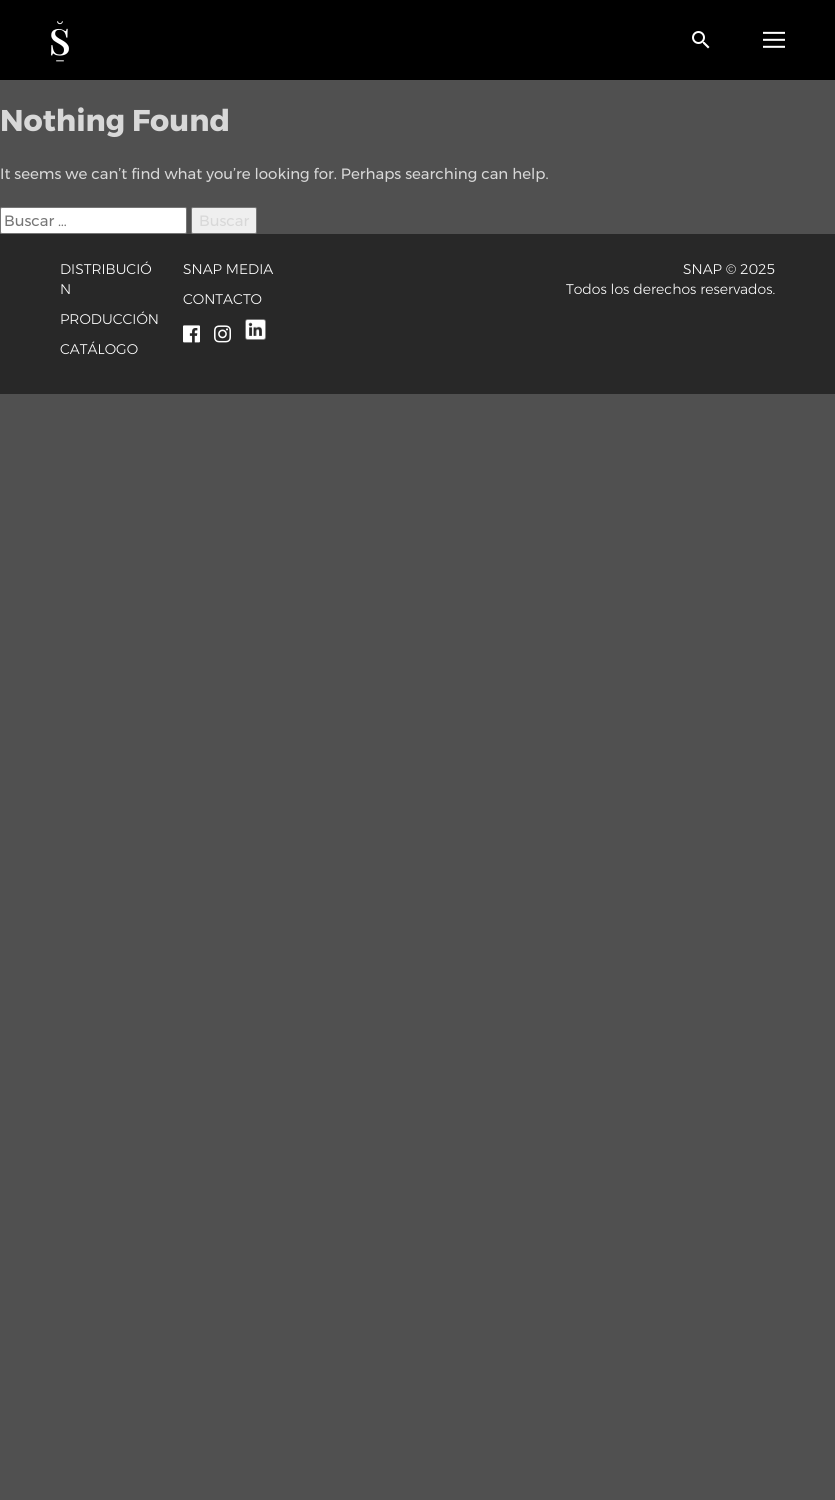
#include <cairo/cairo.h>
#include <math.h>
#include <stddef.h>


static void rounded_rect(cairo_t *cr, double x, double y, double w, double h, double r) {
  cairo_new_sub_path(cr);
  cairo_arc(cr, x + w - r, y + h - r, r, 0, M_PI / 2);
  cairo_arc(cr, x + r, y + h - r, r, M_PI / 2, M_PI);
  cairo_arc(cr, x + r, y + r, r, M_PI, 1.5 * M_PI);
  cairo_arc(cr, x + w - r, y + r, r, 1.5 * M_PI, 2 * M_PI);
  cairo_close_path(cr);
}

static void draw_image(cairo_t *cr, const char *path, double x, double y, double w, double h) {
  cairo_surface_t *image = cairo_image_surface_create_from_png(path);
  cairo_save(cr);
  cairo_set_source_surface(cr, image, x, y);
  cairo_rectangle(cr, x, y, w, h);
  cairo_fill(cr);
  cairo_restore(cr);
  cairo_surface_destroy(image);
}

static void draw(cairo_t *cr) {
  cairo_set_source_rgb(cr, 80 / 255.0, 80 / 255.0, 80 / 255.0);
  cairo_paint(cr);
  cairo_set_source_rgb(cr, 0, 0, 0);
  cairo_rectangle(cr, 0, 0, 835, 80);
  cairo_fill(cr);
  draw_image(cr, "images/1.png", 51, 21, 18, 41);
  draw_image(cr, "images/2.png", 692, 31, 18, 18);
  draw_image(cr, "images/3.png", 763, 31, 22, 17);
  cairo_set_source_rgb(cr, 1, 1, 1);
  rounded_rect(cr, 0.5, 207.5, 186, 26, 1.5);
  cairo_fill_preserve(cr);
  cairo_set_source_rgb(cr, 118 / 255.0, 118 / 255.0, 118 / 255.0);
  cairo_set_line_width(cr, 1);
  cairo_stroke(cr);
  cairo_set_source_rgb(cr, 239 / 255.0, 239 / 255.0, 239 / 255.0);
  rounded_rect(cr, 191.5, 207.5, 65, 26, 1.5);
  cairo_fill_preserve(cr);
  cairo_set_source_rgb(cr, 118 / 255.0, 118 / 255.0, 118 / 255.0);
  cairo_stroke(cr);
  cairo_set_source_rgb(cr, 40 / 255.0, 40 / 255.0, 40 / 255.0);
  cairo_rectangle(cr, 0, 234, 835, 160);
  cairo_fill(cr);
  draw_image(cr, "images/4.png", 183, 325, 17, 18);
  draw_image(cr, "images/5.png", 214, 325, 17, 18);
  draw_image(cr, "images/6.png", 245, 319, 21, 21);
  cairo_select_font_face(cr, "Montserrat", CAIRO_FONT_SLANT_NORMAL, CAIRO_FONT_WEIGHT_BOLD);
  cairo_set_font_size(cr, 30);
  cairo_set_source_rgb(cr, 216 / 255.0, 216 / 255.0, 216 / 255.0);
  cairo_move_to(cr, 0, 131);
  cairo_show_text(cr, "Nothing Found");
  cairo_select_font_face(cr, "Montserrat", CAIRO_FONT_SLANT_NORMAL, CAIRO_FONT_WEIGHT_NORMAL);
  cairo_set_font_size(cr, 15);
  cairo_move_to(cr, 0, 179);
  cairo_show_text(cr, "It seems we can’t find what you’re looking for. Perhaps searching can help.");
  cairo_set_source_rgb(cr, 117 / 255.0, 117 / 255.0, 117 / 255.0);
  cairo_move_to(cr, 4, 226);
  cairo_show_text(cr, "Buscar …");
  cairo_set_source_rgb(cr, 216 / 255.0, 216 / 255.0, 216 / 255.0);
  cairo_move_to(cr, 199, 226);
  cairo_show_text(cr, "Buscar");
  cairo_select_font_face(cr, "Montserrat Light", CAIRO_FONT_SLANT_NORMAL, CAIRO_FONT_WEIGHT_NORMAL);
  cairo_set_font_size(cr, 14);
  cairo_set_source_rgb(cr, 1, 1, 1);
  cairo_move_to(cr, 60, 274);
  cairo_show_text(cr, "DISTRIBUCIÓ");
  cairo_move_to(cr, 60, 294);
  cairo_show_text(cr, "N");
  cairo_move_to(cr, 60, 324);
  cairo_show_text(cr, "PRODUCCIÓN");
  cairo_move_to(cr, 60, 354);
  cairo_show_text(cr, "CATÁLOGO");
  cairo_move_to(cr, 183, 274);
  cairo_show_text(cr, "SNAP MEDIA");
  cairo_move_to(cr, 183, 304);
  cairo_show_text(cr, "CONTACTO");
  cairo_move_to(cr, 683, 274);
  cairo_show_text(cr, "SNAP © 2025");
  cairo_move_to(cr, 566, 294);
  cairo_show_text(cr, "Todos los derechos reservados.");
}

int main(void) {
  cairo_surface_t *surface = cairo_image_surface_create(CAIRO_FORMAT_RGB24, 835, 1500);
  cairo_t *cr = cairo_create(surface);
  cairo_font_options_t *options = cairo_font_options_create();
  cairo_font_options_set_hint_metrics(options, CAIRO_HINT_METRICS_OFF);
  cairo_font_options_set_hint_style(options, CAIRO_HINT_STYLE_NONE);
  cairo_set_font_options(cr, options);
  cairo_set_miter_limit(cr, 4);
  draw(cr);
  cairo_surface_write_to_png(surface, "out.png");
  cairo_font_options_destroy(options);
  cairo_destroy(cr);
  cairo_surface_destroy(surface);
  return 0;
}
